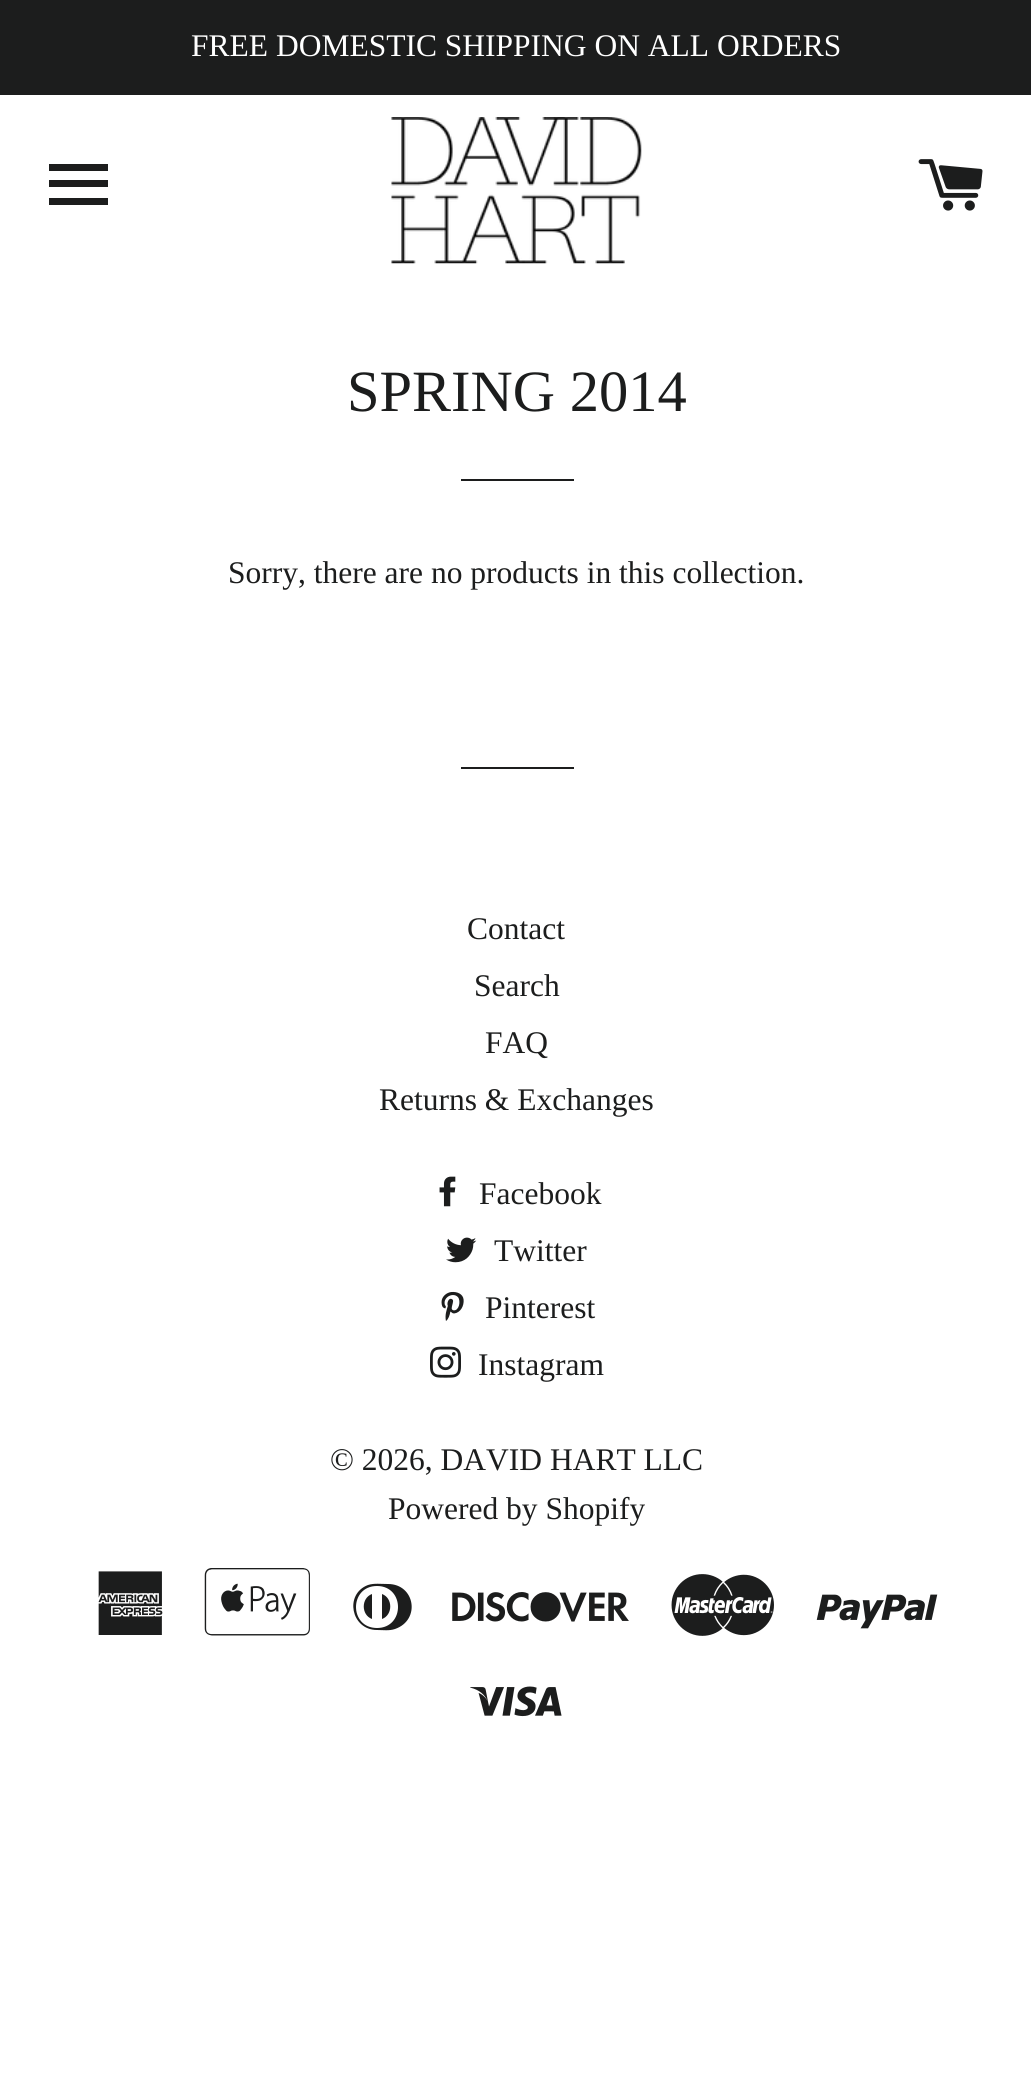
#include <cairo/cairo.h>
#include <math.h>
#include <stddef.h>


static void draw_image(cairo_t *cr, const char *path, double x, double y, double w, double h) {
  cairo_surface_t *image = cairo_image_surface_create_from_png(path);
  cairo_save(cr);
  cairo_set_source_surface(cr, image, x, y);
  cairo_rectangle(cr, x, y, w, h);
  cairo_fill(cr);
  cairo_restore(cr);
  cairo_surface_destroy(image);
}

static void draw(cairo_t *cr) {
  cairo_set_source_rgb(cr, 1, 1, 1);
  cairo_paint(cr);
  cairo_set_source_rgb(cr, 28 / 255.0, 29 / 255.0, 29 / 255.0);
  cairo_rectangle(cr, 0, 0, 1031, 95);
  cairo_fill(cr);
  cairo_new_path(cr);
  cairo_move_to(cr, 49, 164);
  cairo_line_to(cr, 108, 164);
  cairo_line_to(cr, 108, 171);
  cairo_line_to(cr, 49, 171);
  cairo_close_path(cr);
  cairo_move_to(cr, 49, 180);
  cairo_line_to(cr, 108, 180);
  cairo_line_to(cr, 108, 187);
  cairo_line_to(cr, 49, 187);
  cairo_close_path(cr);
  cairo_move_to(cr, 49, 198);
  cairo_line_to(cr, 108, 198);
  cairo_line_to(cr, 108, 205);
  cairo_line_to(cr, 49, 205);
  cairo_close_path(cr);
  cairo_fill(cr);
  draw_image(cr, "images/1.png", 391, 117, 251, 147);
  draw_image(cr, "images/2.png", 918, 159, 65, 52);
  cairo_rectangle(cr, 461, 479, 113, 2);
  cairo_fill(cr);
  cairo_rectangle(cr, 461, 767, 113, 2);
  cairo_fill(cr);
  draw_image(cr, "images/3.png", 439, 1176, 17, 31);
  draw_image(cr, "images/4.png", 446, 1237, 31, 26);
  draw_image(cr, "images/5.png", 441, 1291, 23, 30);
  draw_image(cr, "images/6.png", 430, 1346, 31, 32);
  draw_image(cr, "images/7.png", 98, 1571, 65, 64);
  draw_image(cr, "images/8.png", 204, 1568, 106, 68);
  cairo_new_path(cr);
  cairo_move_to(cr, 388, 1584);
  cairo_curve_to(cr, 415, 1584, 421, 1620, 395, 1629);
  cairo_curve_to(cr, 389, 1631, 383, 1630, 377, 1630);
  cairo_curve_to(cr, 351, 1630, 344, 1594, 368, 1585);
  cairo_curve_to(cr, 374, 1583, 381, 1584, 388, 1584);
  cairo_close_path(cr);
  cairo_move_to(cr, 377, 1628);
  cairo_curve_to(cr, 405, 1628, 405, 1586, 377, 1586);
  cairo_curve_to(cr, 349, 1586, 349, 1628, 377, 1628);
  cairo_close_path(cr);
  cairo_move_to(cr, 372, 1619);
  cairo_curve_to(cr, 361, 1615, 361, 1598, 372, 1594);
  cairo_close_path(cr);
  cairo_move_to(cr, 382, 1594);
  cairo_curve_to(cr, 393, 1598, 393, 1615, 382, 1619);
  cairo_close_path(cr);
  cairo_fill(cr);
  draw_image(cr, "images/9.png", 452, 1592, 177, 30);
  draw_image(cr, "images/10.png", 671, 1574, 103, 62);
  draw_image(cr, "images/11.png", 816, 1594, 122, 35);
  draw_image(cr, "images/12.png", 470, 1686, 92, 31);
  cairo_select_font_face(cr, "Liberation Serif", CAIRO_FONT_SLANT_NORMAL, CAIRO_FONT_WEIGHT_NORMAL);
  cairo_set_font_size(cr, 31.5);
  cairo_set_source_rgb(cr, 1, 1, 1);
  cairo_move_to(cr, 191, 56);
  cairo_show_text(cr, "FREE DOMESTIC SHIPPING ON ALL ORDERS");
  cairo_set_font_size(cr, 58.5);
  cairo_set_source_rgb(cr, 28 / 255.0, 29 / 255.0, 29 / 255.0);
  cairo_move_to(cr, 347, 411);
  cairo_show_text(cr, "SPRING 2014");
  cairo_set_font_size(cr, 31.5);
  cairo_move_to(cr, 228, 583);
  cairo_show_text(cr, "Sorry, there are no products in this collection.");
  cairo_move_to(cr, 467, 939);
  cairo_show_text(cr, "Contact");
  cairo_move_to(cr, 474, 996);
  cairo_show_text(cr, "Search");
  cairo_move_to(cr, 485, 1053);
  cairo_show_text(cr, "FAQ");
  cairo_move_to(cr, 379, 1110);
  cairo_show_text(cr, "Returns & Exchanges");
  cairo_move_to(cr, 479, 1204);
  cairo_show_text(cr, "Facebook");
  cairo_move_to(cr, 494, 1261);
  cairo_show_text(cr, "Twitter");
  cairo_move_to(cr, 485, 1318);
  cairo_show_text(cr, "Pinterest");
  cairo_move_to(cr, 478, 1375);
  cairo_show_text(cr, "Instagram");
  cairo_move_to(cr, 330, 1470);
  cairo_show_text(cr, "© 2026, DAVID HART LLC");
  cairo_move_to(cr, 388, 1519);
  cairo_show_text(cr, "Powered by Shopify");
}

int main(void) {
  cairo_surface_t *surface = cairo_image_surface_create(CAIRO_FORMAT_RGB24, 1031, 2083);
  cairo_t *cr = cairo_create(surface);
  cairo_font_options_t *options = cairo_font_options_create();
  cairo_font_options_set_hint_metrics(options, CAIRO_HINT_METRICS_OFF);
  cairo_font_options_set_hint_style(options, CAIRO_HINT_STYLE_NONE);
  cairo_set_font_options(cr, options);
  cairo_set_miter_limit(cr, 4);
  draw(cr);
  cairo_surface_write_to_png(surface, "out.png");
  cairo_font_options_destroy(options);
  cairo_destroy(cr);
  cairo_surface_destroy(surface);
  return 0;
}
